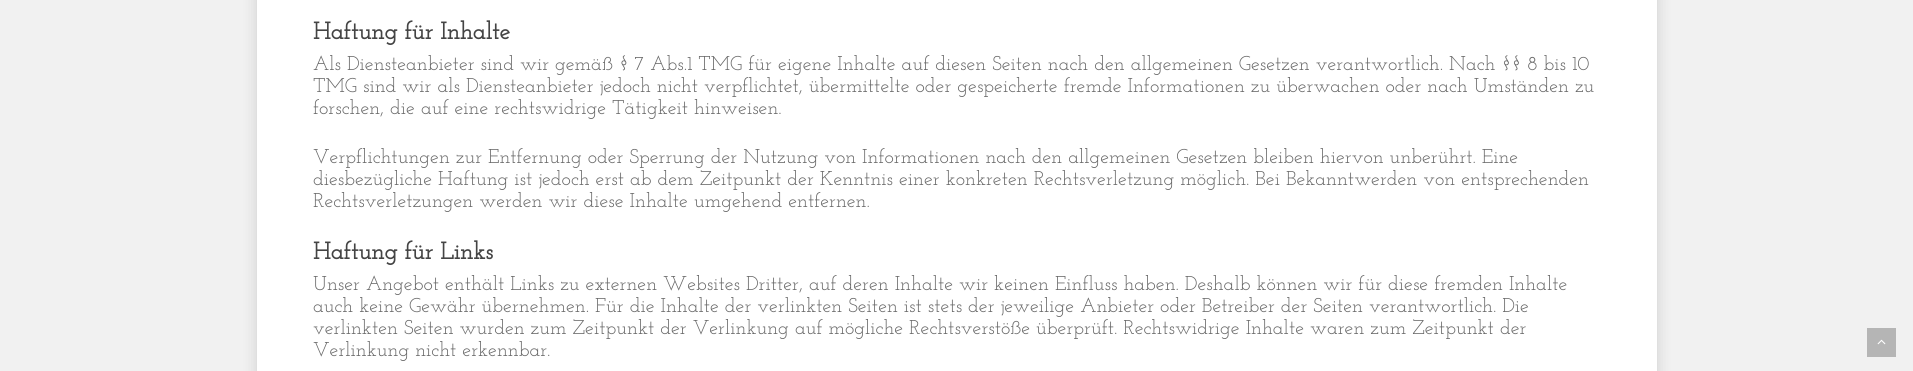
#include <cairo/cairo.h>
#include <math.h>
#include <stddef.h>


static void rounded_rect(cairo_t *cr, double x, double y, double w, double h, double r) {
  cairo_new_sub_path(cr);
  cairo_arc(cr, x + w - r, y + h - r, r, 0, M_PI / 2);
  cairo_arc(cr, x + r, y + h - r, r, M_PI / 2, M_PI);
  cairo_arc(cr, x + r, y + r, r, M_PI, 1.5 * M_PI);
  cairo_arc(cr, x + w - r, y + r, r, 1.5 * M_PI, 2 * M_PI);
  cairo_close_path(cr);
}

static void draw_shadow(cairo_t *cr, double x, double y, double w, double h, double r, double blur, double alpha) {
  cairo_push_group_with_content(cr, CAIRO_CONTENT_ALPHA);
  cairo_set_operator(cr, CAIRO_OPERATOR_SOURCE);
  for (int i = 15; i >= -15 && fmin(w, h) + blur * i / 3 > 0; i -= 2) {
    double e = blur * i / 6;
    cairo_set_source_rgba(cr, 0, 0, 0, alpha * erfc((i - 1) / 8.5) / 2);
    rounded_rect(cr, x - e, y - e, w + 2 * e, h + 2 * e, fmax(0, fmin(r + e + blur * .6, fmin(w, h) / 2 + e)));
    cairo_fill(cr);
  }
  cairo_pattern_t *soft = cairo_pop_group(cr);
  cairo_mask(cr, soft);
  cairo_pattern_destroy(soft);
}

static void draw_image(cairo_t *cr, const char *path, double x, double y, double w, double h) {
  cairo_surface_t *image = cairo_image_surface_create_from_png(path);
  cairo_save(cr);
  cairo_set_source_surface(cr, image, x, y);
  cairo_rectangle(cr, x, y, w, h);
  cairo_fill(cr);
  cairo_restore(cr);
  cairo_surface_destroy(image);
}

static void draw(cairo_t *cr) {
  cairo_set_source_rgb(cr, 241 / 255.0, 241 / 255.0, 241 / 255.0);
  cairo_paint(cr);
  cairo_set_source_rgb(cr, 0, 0, 0);
  draw_shadow(cr, 257, -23, 1400, 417, 0, 7.5, 0.15);
  cairo_set_source_rgb(cr, 1, 1, 1);
  cairo_rectangle(cr, 257, 0, 1400, 371);
  cairo_fill(cr);
  cairo_set_source_rgb(cr, 181 / 255.0, 181 / 255.0, 181 / 255.0);
  cairo_rectangle(cr, 1867, 328, 29, 29);
  cairo_fill(cr);
  draw_image(cr, "images/1.png", 1877, 339, 9, 6);
  cairo_select_font_face(cr, "Josefin Slab", CAIRO_FONT_SLANT_NORMAL, CAIRO_FONT_WEIGHT_BOLD);
  cairo_set_font_size(cr, 24);
  cairo_set_source_rgb(cr, 68 / 255.0, 68 / 255.0, 68 / 255.0);
  cairo_move_to(cr, 313, 39);
  cairo_show_text(cr, "Haftung für Inhalte");
  cairo_select_font_face(cr, "Josefin Slab Thin", CAIRO_FONT_SLANT_NORMAL, CAIRO_FONT_WEIGHT_NORMAL);
  cairo_set_font_size(cr, 20);
  cairo_set_source_rgb(cr, 103 / 255.0, 103 / 255.0, 103 / 255.0);
  cairo_move_to(cr, 313, 70);
  cairo_show_text(cr, "Als Diensteanbieter sind wir gemäß § 7 Abs.1 TMG für eigene Inhalte auf diesen Seiten nach den allgemeinen Gesetzen verantwortlich. Nach §§ 8 bis 10");
  cairo_move_to(cr, 313, 92);
  cairo_show_text(cr, "TMG sind wir als Diensteanbieter jedoch nicht verpflichtet, übermittelte oder gespeicherte fremde Informationen zu überwachen oder nach Umständen zu");
  cairo_move_to(cr, 313, 114);
  cairo_show_text(cr, "forschen, die auf eine rechtswidrige Tätigkeit hinweisen.");
  cairo_move_to(cr, 313, 163);
  cairo_show_text(cr, "Verpflichtungen zur Entfernung oder Sperrung der Nutzung von Informationen nach den allgemeinen Gesetzen bleiben hiervon unberührt. Eine");
  cairo_move_to(cr, 313, 185);
  cairo_show_text(cr, "diesbezügliche Haftung ist jedoch erst ab dem Zeitpunkt der Kenntnis einer konkreten Rechtsverletzung möglich. Bei Bekanntwerden von entsprechenden");
  cairo_move_to(cr, 313, 207);
  cairo_show_text(cr, "Rechtsverletzungen werden wir diese Inhalte umgehend entfernen.");
  cairo_select_font_face(cr, "Josefin Slab", CAIRO_FONT_SLANT_NORMAL, CAIRO_FONT_WEIGHT_BOLD);
  cairo_set_font_size(cr, 24);
  cairo_set_source_rgb(cr, 68 / 255.0, 68 / 255.0, 68 / 255.0);
  cairo_move_to(cr, 313, 259);
  cairo_show_text(cr, "Haftung für Links");
  cairo_select_font_face(cr, "Josefin Slab Thin", CAIRO_FONT_SLANT_NORMAL, CAIRO_FONT_WEIGHT_NORMAL);
  cairo_set_font_size(cr, 20);
  cairo_set_source_rgb(cr, 103 / 255.0, 103 / 255.0, 103 / 255.0);
  cairo_move_to(cr, 313, 290);
  cairo_show_text(cr, "Unser Angebot enthält Links zu externen Websites Dritter, auf deren Inhalte wir keinen Einfluss haben. Deshalb können wir für diese fremden Inhalte");
  cairo_move_to(cr, 313, 312);
  cairo_show_text(cr, "auch keine Gewähr übernehmen. Für die Inhalte der verlinkten Seiten ist stets der jeweilige Anbieter oder Betreiber der Seiten verantwortlich. Die");
  cairo_move_to(cr, 313, 334);
  cairo_show_text(cr, "verlinkten Seiten wurden zum Zeitpunkt der Verlinkung auf mögliche Rechtsverstöße überprüft. Rechtswidrige Inhalte waren zum Zeitpunkt der");
  cairo_move_to(cr, 313, 356);
  cairo_show_text(cr, "Verlinkung nicht erkennbar.");
}

int main(void) {
  cairo_surface_t *surface = cairo_image_surface_create(CAIRO_FORMAT_RGB24, 1913, 371);
  cairo_t *cr = cairo_create(surface);
  cairo_font_options_t *options = cairo_font_options_create();
  cairo_font_options_set_hint_metrics(options, CAIRO_HINT_METRICS_OFF);
  cairo_font_options_set_hint_style(options, CAIRO_HINT_STYLE_NONE);
  cairo_set_font_options(cr, options);
  cairo_set_miter_limit(cr, 4);
  draw(cr);
  cairo_surface_write_to_png(surface, "out.png");
  cairo_font_options_destroy(options);
  cairo_destroy(cr);
  cairo_surface_destroy(surface);
  return 0;
}
